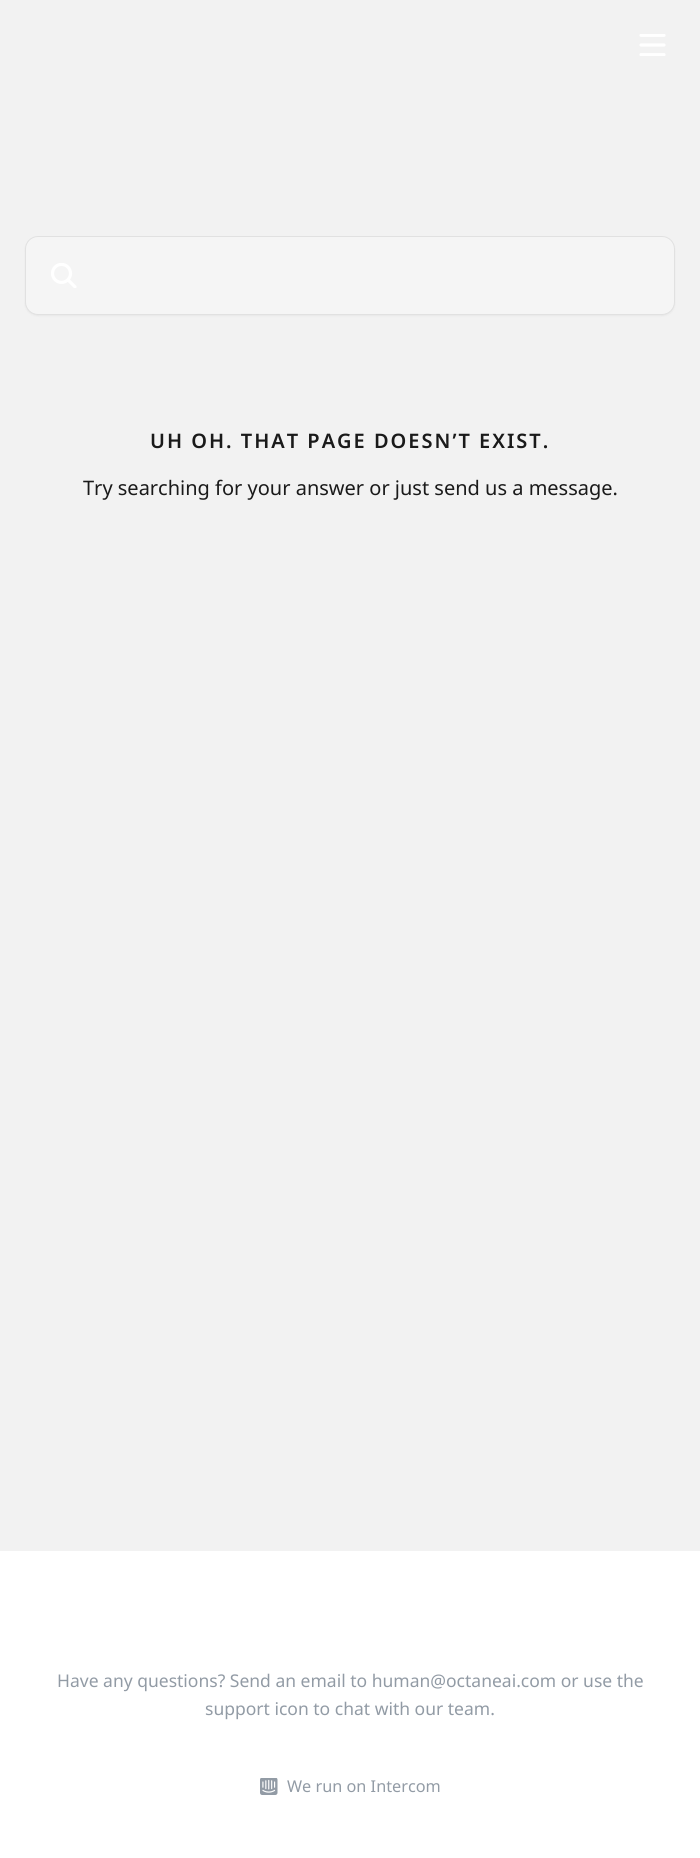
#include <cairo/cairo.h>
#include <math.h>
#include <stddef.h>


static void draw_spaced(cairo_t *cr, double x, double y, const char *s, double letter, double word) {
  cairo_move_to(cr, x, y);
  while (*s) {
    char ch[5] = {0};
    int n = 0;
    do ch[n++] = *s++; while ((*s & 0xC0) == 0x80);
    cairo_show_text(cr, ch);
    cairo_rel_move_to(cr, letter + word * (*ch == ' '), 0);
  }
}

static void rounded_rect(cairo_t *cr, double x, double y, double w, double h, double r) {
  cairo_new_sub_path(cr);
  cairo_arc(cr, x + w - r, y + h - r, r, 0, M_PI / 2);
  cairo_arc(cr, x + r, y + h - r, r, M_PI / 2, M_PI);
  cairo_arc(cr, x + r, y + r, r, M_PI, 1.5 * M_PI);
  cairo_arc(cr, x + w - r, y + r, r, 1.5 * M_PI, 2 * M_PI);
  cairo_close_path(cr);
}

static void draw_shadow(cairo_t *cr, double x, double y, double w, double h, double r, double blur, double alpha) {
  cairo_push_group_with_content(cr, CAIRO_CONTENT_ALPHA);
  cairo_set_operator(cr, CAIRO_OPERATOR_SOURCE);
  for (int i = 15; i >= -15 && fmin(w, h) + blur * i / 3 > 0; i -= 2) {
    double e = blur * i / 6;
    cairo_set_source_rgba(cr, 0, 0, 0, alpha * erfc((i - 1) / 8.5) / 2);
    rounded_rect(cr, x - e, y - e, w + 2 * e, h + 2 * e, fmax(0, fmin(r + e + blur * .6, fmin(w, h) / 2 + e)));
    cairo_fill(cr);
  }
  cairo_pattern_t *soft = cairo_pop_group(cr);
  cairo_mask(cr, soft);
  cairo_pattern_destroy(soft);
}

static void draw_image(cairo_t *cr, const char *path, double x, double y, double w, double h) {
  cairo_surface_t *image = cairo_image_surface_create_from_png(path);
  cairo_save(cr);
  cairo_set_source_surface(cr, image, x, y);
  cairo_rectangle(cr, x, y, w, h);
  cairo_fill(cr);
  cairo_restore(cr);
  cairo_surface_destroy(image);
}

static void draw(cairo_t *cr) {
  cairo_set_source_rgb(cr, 242 / 255.0, 242 / 255.0, 242 / 255.0);
  cairo_paint(cr);
  draw_image(cr, "images/1.png", 639, 34, 27, 22);
  cairo_set_source_rgb(cr, 0, 0, 0);
  draw_shadow(cr, 25, 238, 650, 78, 13, 1, 0.05);
  cairo_set_source_rgb(cr, 245 / 255.0, 245 / 255.0, 245 / 255.0);
  rounded_rect(cr, 25.5, 236.5, 649, 78, 12.5);
  cairo_fill_preserve(cr);
  cairo_set_source_rgb(cr, 225 / 255.0, 225 / 255.0, 225 / 255.0);
  cairo_set_line_width(cr, 1);
  cairo_stroke(cr);
  draw_image(cr, "images/2.png", 51, 263, 26, 25);
  cairo_set_source_rgb(cr, 1, 1, 1);
  cairo_rectangle(cr, 0, 1551, 700, 307);
  cairo_fill(cr);
  draw_image(cr, "images/3.png", 260, 1778, 18, 17);
  cairo_select_font_face(cr, "Noto Sans SemiBold", CAIRO_FONT_SLANT_NORMAL, CAIRO_FONT_WEIGHT_NORMAL);
  cairo_set_font_size(cr, 20);
  cairo_set_source_rgb(cr, 26 / 255.0, 26 / 255.0, 26 / 255.0);
  draw_spaced(cr, 150, 448, "UH OH. THAT PAGE DOESN’T EXIST.", 2, 0);
  cairo_select_font_face(cr, "Noto Sans", CAIRO_FONT_SLANT_NORMAL, CAIRO_FONT_WEIGHT_NORMAL);
  cairo_move_to(cr, 83, 495);
  cairo_show_text(cr, "Try searching for your answer or just send us a message.");
  cairo_set_font_size(cr, 17.5);
  cairo_set_source_rgb(cr, 146 / 255.0, 155 / 255.0, 165 / 255.0);
  cairo_move_to(cr, 57, 1687);
  cairo_show_text(cr, "Have any questions? Send an email to human@octaneai.com or use the");
  cairo_move_to(cr, 205, 1715);
  cairo_show_text(cr, "support icon to chat with our team.");
  cairo_set_font_size(cr, 16.25);
  cairo_move_to(cr, 287, 1792);
  cairo_show_text(cr, "We run on Intercom");
}

int main(void) {
  cairo_surface_t *surface = cairo_image_surface_create(CAIRO_FORMAT_RGB24, 700, 1858);
  cairo_t *cr = cairo_create(surface);
  cairo_font_options_t *options = cairo_font_options_create();
  cairo_font_options_set_hint_metrics(options, CAIRO_HINT_METRICS_OFF);
  cairo_font_options_set_hint_style(options, CAIRO_HINT_STYLE_NONE);
  cairo_set_font_options(cr, options);
  cairo_set_miter_limit(cr, 4);
  draw(cr);
  cairo_surface_write_to_png(surface, "out.png");
  cairo_font_options_destroy(options);
  cairo_destroy(cr);
  cairo_surface_destroy(surface);
  return 0;
}
